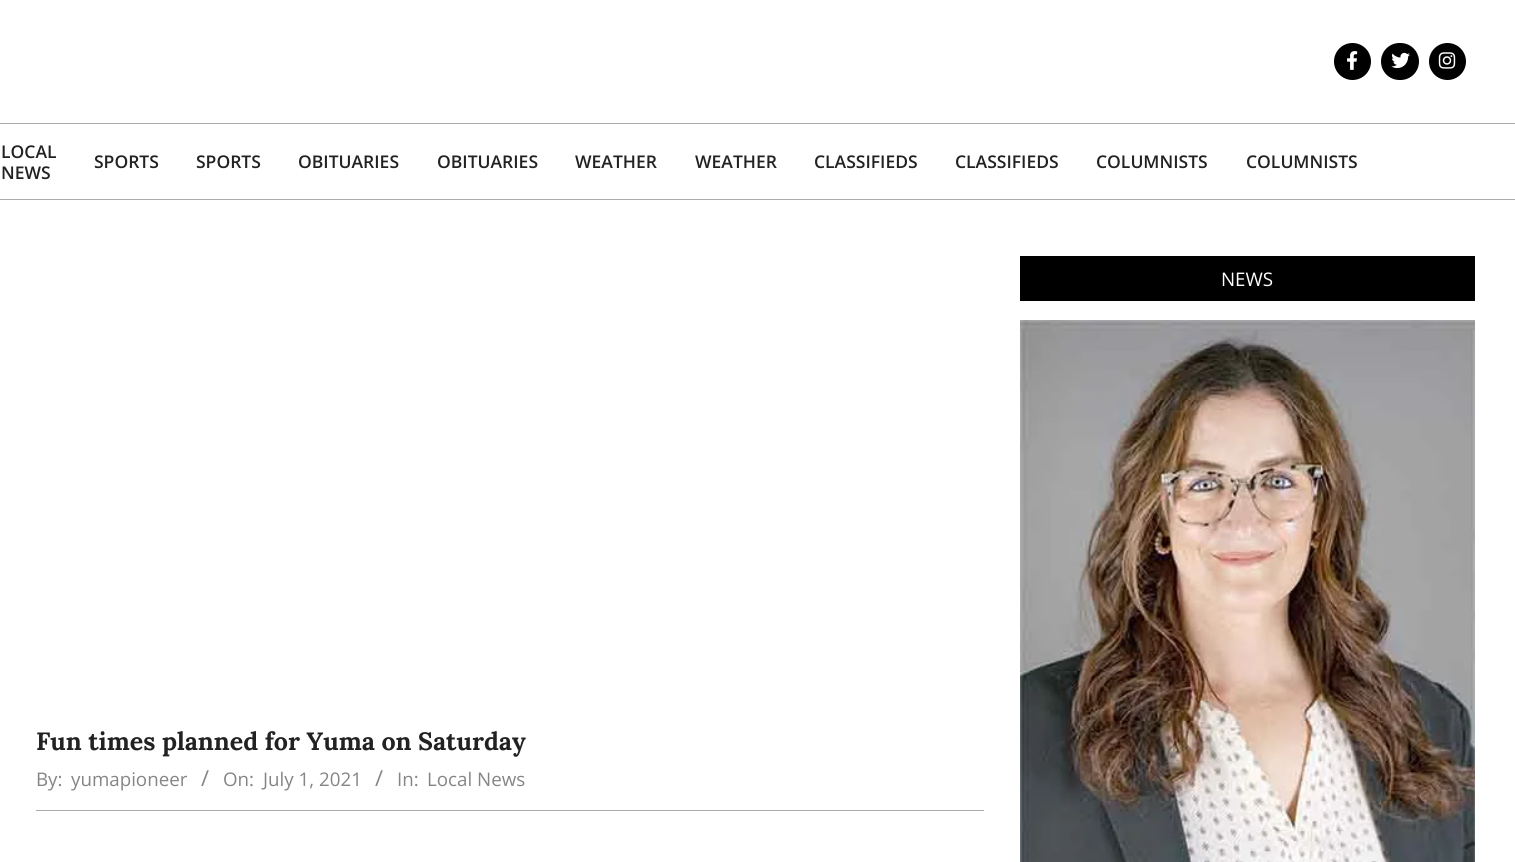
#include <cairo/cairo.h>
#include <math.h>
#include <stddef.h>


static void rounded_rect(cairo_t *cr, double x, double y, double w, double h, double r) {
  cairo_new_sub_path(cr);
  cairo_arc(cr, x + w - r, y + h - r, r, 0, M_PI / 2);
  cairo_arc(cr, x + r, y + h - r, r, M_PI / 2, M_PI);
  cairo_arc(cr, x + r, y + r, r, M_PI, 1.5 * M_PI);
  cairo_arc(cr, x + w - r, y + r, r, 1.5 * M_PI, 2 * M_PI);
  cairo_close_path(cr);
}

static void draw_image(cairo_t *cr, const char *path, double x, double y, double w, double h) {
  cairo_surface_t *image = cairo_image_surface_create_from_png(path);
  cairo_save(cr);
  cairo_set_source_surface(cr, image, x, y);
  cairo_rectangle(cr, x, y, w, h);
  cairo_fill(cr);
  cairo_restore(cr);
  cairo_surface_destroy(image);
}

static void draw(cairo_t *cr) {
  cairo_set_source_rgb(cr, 1, 1, 1);
  cairo_paint(cr);
  cairo_set_source_rgb(cr, 171 / 255.0, 171 / 255.0, 171 / 255.0);
  cairo_rectangle(cr, 0, 123, 1515, 1);
  cairo_fill(cr);
  cairo_set_source_rgb(cr, 0, 0, 0);
  cairo_arc(cr, 1352.5, 61.5, 18.5, 0, 2 * M_PI);
  cairo_fill(cr);
  draw_image(cr, "images/1.png", 1347, 51, 11, 19);
  rounded_rect(cr, 1381, 43, 38, 37, 18.5);
  cairo_fill(cr);
  draw_image(cr, "images/2.png", 1391, 52, 19, 17);
  cairo_arc(cr, 1447.5, 61.5, 18.5, 0, 2 * M_PI);
  cairo_fill(cr);
  draw_image(cr, "images/3.png", 1438, 52, 18, 17);
  cairo_set_source_rgb(cr, 171 / 255.0, 171 / 255.0, 171 / 255.0);
  cairo_rectangle(cr, 0, 199, 1515, 1);
  cairo_fill(cr);
  cairo_set_source_rgb(cr, 0, 0, 0);
  cairo_rectangle(cr, 1020, 256, 455, 45);
  cairo_fill(cr);
  draw_image(cr, "images/4.png", 1020, 320, 455, 542);
  cairo_set_source_rgb(cr, 171 / 255.0, 171 / 255.0, 171 / 255.0);
  cairo_rectangle(cr, 36, 810, 948, 1);
  cairo_fill(cr);
  cairo_select_font_face(cr, "Open Sans SemiBold", CAIRO_FONT_SLANT_NORMAL, CAIRO_FONT_WEIGHT_NORMAL);
  cairo_set_font_size(cr, 17.5);
  cairo_set_source_rgb(cr, 34 / 255.0, 34 / 255.0, 34 / 255.0);
  cairo_move_to(cr, 1, 158);
  cairo_show_text(cr, "LOCAL");
  cairo_move_to(cr, 1, 179);
  cairo_show_text(cr, "NEWS");
  cairo_move_to(cr, 94, 168);
  cairo_show_text(cr, "SPORTS");
  cairo_move_to(cr, 196, 168);
  cairo_show_text(cr, "SPORTS");
  cairo_move_to(cr, 298, 168);
  cairo_show_text(cr, "OBITUARIES");
  cairo_move_to(cr, 437, 168);
  cairo_show_text(cr, "OBITUARIES");
  cairo_move_to(cr, 575, 168);
  cairo_show_text(cr, "WEATHER");
  cairo_move_to(cr, 695, 168);
  cairo_show_text(cr, "WEATHER");
  cairo_move_to(cr, 814, 168);
  cairo_show_text(cr, "CLASSIFIEDS");
  cairo_move_to(cr, 955, 168);
  cairo_show_text(cr, "CLASSIFIEDS");
  cairo_move_to(cr, 1096, 168);
  cairo_show_text(cr, "COLUMNISTS");
  cairo_move_to(cr, 1246, 168);
  cairo_show_text(cr, "COLUMNISTS");
  cairo_select_font_face(cr, "Open Sans", CAIRO_FONT_SLANT_NORMAL, CAIRO_FONT_WEIGHT_NORMAL);
  cairo_set_font_size(cr, 18.75);
  cairo_set_source_rgb(cr, 1, 1, 1);
  cairo_move_to(cr, 1221, 286);
  cairo_show_text(cr, "NEWS");
  cairo_select_font_face(cr, "Lora", CAIRO_FONT_SLANT_NORMAL, CAIRO_FONT_WEIGHT_BOLD);
  cairo_set_font_size(cr, 25);
  cairo_set_source_rgb(cr, 34 / 255.0, 34 / 255.0, 34 / 255.0);
  cairo_move_to(cr, 36, 750);
  cairo_show_text(cr, "Fun times planned for Yuma on Saturday");
  cairo_select_font_face(cr, "Open Sans", CAIRO_FONT_SLANT_NORMAL, CAIRO_FONT_WEIGHT_NORMAL);
  cairo_set_font_size(cr, 18.75);
  cairo_set_source_rgb(cr, 133 / 255.0, 133 / 255.0, 133 / 255.0);
  cairo_move_to(cr, 36, 786);
  cairo_show_text(cr, "By:");
  cairo_move_to(cr, 71, 786);
  cairo_show_text(cr, "yumapioneer");
  cairo_set_font_size(cr, 22);
  cairo_move_to(cr, 201, 786);
  cairo_show_text(cr, "/");
  cairo_set_font_size(cr, 18.75);
  cairo_move_to(cr, 223, 786);
  cairo_show_text(cr, "On:");
  cairo_move_to(cr, 263, 786);
  cairo_show_text(cr, "July 1, 2021");
  cairo_set_font_size(cr, 22);
  cairo_move_to(cr, 375, 786);
  cairo_show_text(cr, "/");
  cairo_set_font_size(cr, 18.75);
  cairo_move_to(cr, 397, 786);
  cairo_show_text(cr, "In:");
  cairo_move_to(cr, 427, 786);
  cairo_show_text(cr, "Local News");
}

int main(void) {
  cairo_surface_t *surface = cairo_image_surface_create(CAIRO_FORMAT_RGB24, 1515, 862);
  cairo_t *cr = cairo_create(surface);
  cairo_font_options_t *options = cairo_font_options_create();
  cairo_font_options_set_hint_metrics(options, CAIRO_HINT_METRICS_OFF);
  cairo_font_options_set_hint_style(options, CAIRO_HINT_STYLE_NONE);
  cairo_set_font_options(cr, options);
  cairo_set_miter_limit(cr, 4);
  draw(cr);
  cairo_surface_write_to_png(surface, "out.png");
  cairo_font_options_destroy(options);
  cairo_destroy(cr);
  cairo_surface_destroy(surface);
  return 0;
}
